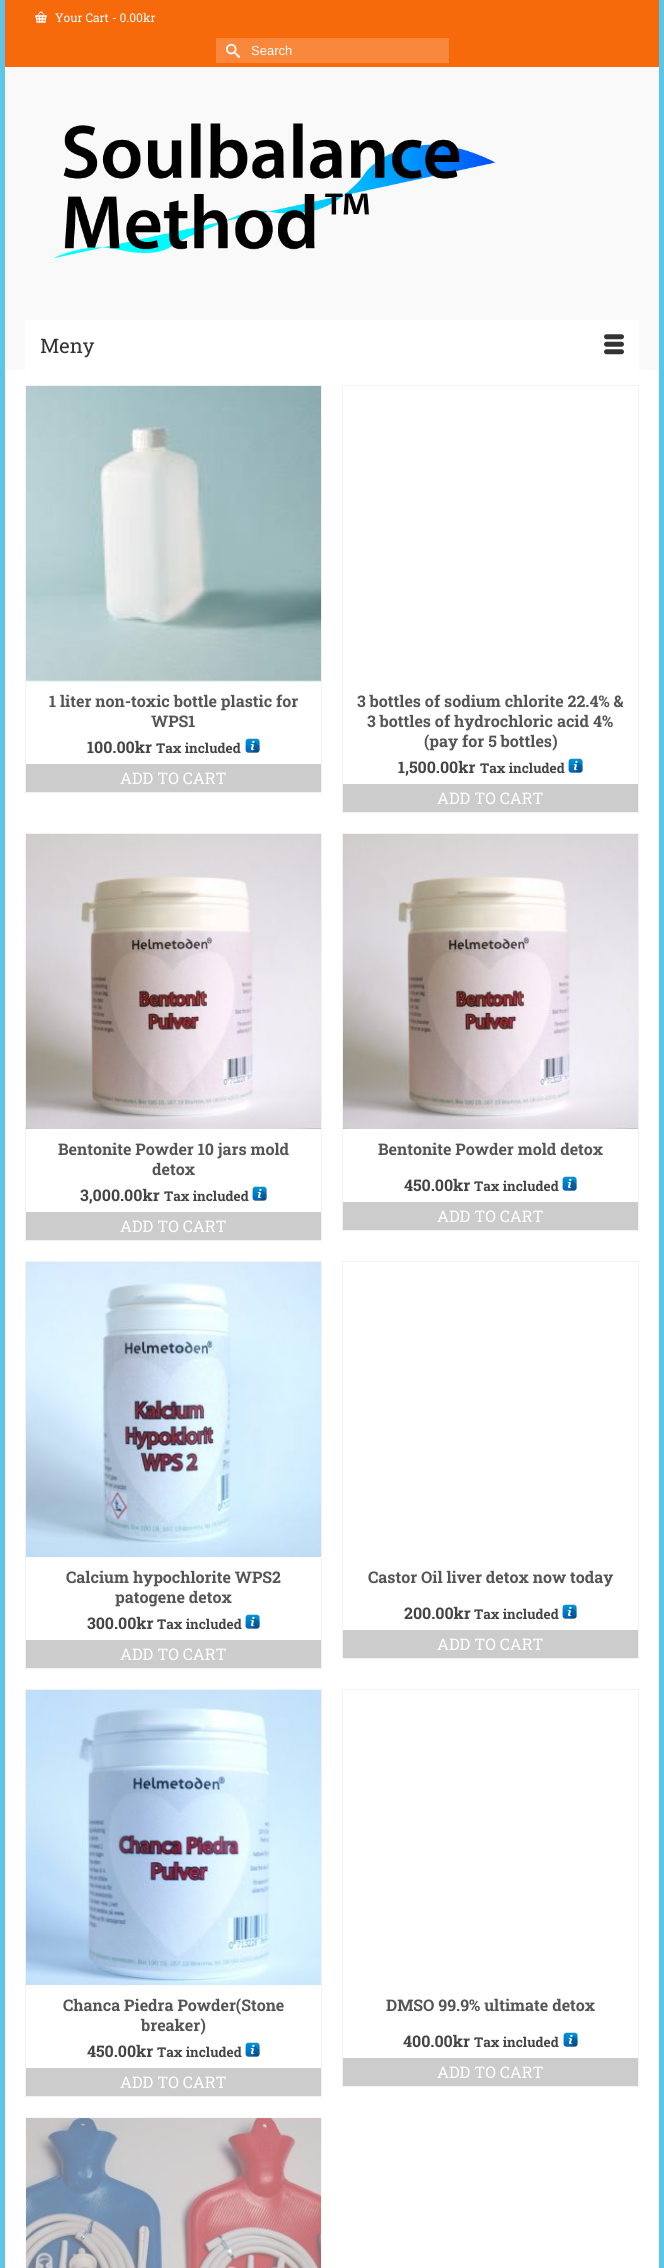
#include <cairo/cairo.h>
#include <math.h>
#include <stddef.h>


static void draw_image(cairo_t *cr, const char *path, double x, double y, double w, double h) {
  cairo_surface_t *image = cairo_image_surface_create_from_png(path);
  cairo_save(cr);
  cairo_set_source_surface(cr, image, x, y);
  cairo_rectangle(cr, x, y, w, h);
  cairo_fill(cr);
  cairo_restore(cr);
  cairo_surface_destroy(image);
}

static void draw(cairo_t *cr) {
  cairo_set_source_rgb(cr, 94 / 255.0, 197 / 255.0, 232 / 255.0);
  cairo_paint(cr);
  cairo_set_source_rgb(cr, 249 / 255.0, 249 / 255.0, 249 / 255.0);
  cairo_rectangle(cr, 5, 67, 654, 303);
  cairo_fill(cr);
  cairo_set_source_rgb(cr, 247 / 255.0, 106 / 255.0, 12 / 255.0);
  cairo_rectangle(cr, 5, 0, 654, 67);
  cairo_fill(cr);
  draw_image(cr, "images/1.png", 35, 11, 12, 12);
  cairo_set_source_rgb(cr, 249 / 255.0, 136 / 255.0, 61 / 255.0);
  cairo_rectangle(cr, 216, 38, 233, 25);
  cairo_fill(cr);
  draw_image(cr, "images/2.png", 226, 43, 14, 15);
  draw_image(cr, "images/3.png", 53, 123, 443, 136);
  cairo_set_source_rgb(cr, 1, 1, 1);
  cairo_rectangle(cr, 25, 320, 614, 50);
  cairo_fill(cr);
  draw_image(cr, "images/4.png", 604, 334, 20, 21);
  cairo_rectangle(cr, 5, 370, 654, 1898);
  cairo_fill(cr);
  cairo_rectangle(cr, 25.5, 385.5, 296, 407);
  cairo_set_source_rgb(cr, 242 / 255.0, 242 / 255.0, 242 / 255.0);
  cairo_set_line_width(cr, 1);
  cairo_stroke(cr);
  draw_image(cr, "images/5.png", 26, 386, 295, 296);
  draw_image(cr, "images/6.png", 245, 738, 15, 15);
  cairo_set_source_rgb(cr, 204 / 255.0, 204 / 255.0, 204 / 255.0);
  cairo_rectangle(cr, 26, 764, 295, 28);
  cairo_fill(cr);
  cairo_rectangle(cr, 342.5, 385.5, 296, 427);
  cairo_set_source_rgb(cr, 242 / 255.0, 242 / 255.0, 242 / 255.0);
  cairo_stroke(cr);
  draw_image(cr, "images/6.png", 568, 758, 15, 15);
  cairo_set_source_rgb(cr, 204 / 255.0, 204 / 255.0, 204 / 255.0);
  cairo_rectangle(cr, 343, 784, 295, 28);
  cairo_fill(cr);
  cairo_rectangle(cr, 25.5, 833.5, 296, 407);
  cairo_set_source_rgb(cr, 242 / 255.0, 242 / 255.0, 242 / 255.0);
  cairo_stroke(cr);
  draw_image(cr, "images/7.png", 26, 834, 295, 295);
  draw_image(cr, "images/6.png", 252, 1186, 15, 15);
  cairo_set_source_rgb(cr, 204 / 255.0, 204 / 255.0, 204 / 255.0);
  cairo_rectangle(cr, 26, 1212, 295, 28);
  cairo_fill(cr);
  cairo_rectangle(cr, 342.5, 833.5, 296, 397);
  cairo_set_source_rgb(cr, 242 / 255.0, 242 / 255.0, 242 / 255.0);
  cairo_stroke(cr);
  draw_image(cr, "images/8.png", 343, 834, 295, 295);
  draw_image(cr, "images/6.png", 562, 1176, 15, 15);
  cairo_set_source_rgb(cr, 204 / 255.0, 204 / 255.0, 204 / 255.0);
  cairo_rectangle(cr, 343, 1202, 295, 28);
  cairo_fill(cr);
  cairo_rectangle(cr, 25.5, 1261.5, 296, 407);
  cairo_set_source_rgb(cr, 242 / 255.0, 242 / 255.0, 242 / 255.0);
  cairo_stroke(cr);
  draw_image(cr, "images/9.png", 26, 1262, 295, 295);
  draw_image(cr, "images/6.png", 245, 1614, 15, 15);
  cairo_set_source_rgb(cr, 204 / 255.0, 204 / 255.0, 204 / 255.0);
  cairo_rectangle(cr, 26, 1640, 295, 28);
  cairo_fill(cr);
  cairo_rectangle(cr, 342.5, 1261.5, 296, 397);
  cairo_set_source_rgb(cr, 242 / 255.0, 242 / 255.0, 242 / 255.0);
  cairo_stroke(cr);
  draw_image(cr, "images/6.png", 562, 1604, 15, 15);
  cairo_set_source_rgb(cr, 204 / 255.0, 204 / 255.0, 204 / 255.0);
  cairo_rectangle(cr, 343, 1630, 295, 28);
  cairo_fill(cr);
  cairo_rectangle(cr, 25.5, 1689.5, 296, 407);
  cairo_set_source_rgb(cr, 242 / 255.0, 242 / 255.0, 242 / 255.0);
  cairo_stroke(cr);
  draw_image(cr, "images/10.png", 26, 1690, 295, 295);
  draw_image(cr, "images/6.png", 245, 2042, 15, 15);
  cairo_set_source_rgb(cr, 204 / 255.0, 204 / 255.0, 204 / 255.0);
  cairo_rectangle(cr, 26, 2068, 295, 28);
  cairo_fill(cr);
  cairo_rectangle(cr, 342.5, 1689.5, 296, 397);
  cairo_set_source_rgb(cr, 242 / 255.0, 242 / 255.0, 242 / 255.0);
  cairo_stroke(cr);
  draw_image(cr, "images/6.png", 563, 2032, 15, 15);
  cairo_set_source_rgb(cr, 204 / 255.0, 204 / 255.0, 204 / 255.0);
  cairo_rectangle(cr, 343, 2058, 295, 28);
  cairo_fill(cr);
  cairo_rectangle(cr, 25.5, 2117.5, 296, 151);
  cairo_set_source_rgb(cr, 248 / 255.0, 248 / 255.0, 248 / 255.0);
  cairo_stroke(cr);
  draw_image(cr, "images/11.png", 26, 2118, 295, 150);
  cairo_select_font_face(cr, "Roboto Slab", CAIRO_FONT_SLANT_NORMAL, CAIRO_FONT_WEIGHT_NORMAL);
  cairo_set_font_size(cr, 12);
  cairo_set_source_rgb(cr, 1, 1, 1);
  cairo_move_to(cr, 55, 22);
  cairo_show_text(cr, "Your Cart - 0.00kr");
  cairo_select_font_face(cr, "Liberation Sans", CAIRO_FONT_SLANT_NORMAL, CAIRO_FONT_WEIGHT_NORMAL);
  cairo_set_font_size(cr, 13);
  cairo_move_to(cr, 251, 55);
  cairo_show_text(cr, "Search");
  cairo_select_font_face(cr, "Roboto Slab", CAIRO_FONT_SLANT_NORMAL, CAIRO_FONT_WEIGHT_NORMAL);
  cairo_set_font_size(cr, 20);
  cairo_set_source_rgb(cr, 51 / 255.0, 51 / 255.0, 51 / 255.0);
  cairo_move_to(cr, 40, 353);
  cairo_show_text(cr, "Meny");
  cairo_select_font_face(cr, "Roboto Slab", CAIRO_FONT_SLANT_NORMAL, CAIRO_FONT_WEIGHT_BOLD);
  cairo_set_font_size(cr, 16);
  cairo_set_source_rgb(cr, 85 / 255.0, 85 / 255.0, 85 / 255.0);
  cairo_move_to(cr, 49, 707);
  cairo_show_text(cr, "1 liter non-toxic bottle plastic for");
  cairo_move_to(cr, 151, 727);
  cairo_show_text(cr, "WPS1");
  cairo_set_source_rgb(cr, 68 / 255.0, 68 / 255.0, 68 / 255.0);
  cairo_move_to(cr, 87, 753);
  cairo_show_text(cr, "100.00kr");
  cairo_set_font_size(cr, 13.5);
  cairo_move_to(cr, 156, 753);
  cairo_show_text(cr, "Tax included");
  cairo_select_font_face(cr, "Roboto Slab", CAIRO_FONT_SLANT_NORMAL, CAIRO_FONT_WEIGHT_NORMAL);
  cairo_set_font_size(cr, 16);
  cairo_set_source_rgb(cr, 1, 1, 1);
  cairo_move_to(cr, 120, 784);
  cairo_show_text(cr, "ADD TO CART");
  cairo_select_font_face(cr, "Roboto Slab", CAIRO_FONT_SLANT_NORMAL, CAIRO_FONT_WEIGHT_BOLD);
  cairo_set_source_rgb(cr, 85 / 255.0, 85 / 255.0, 85 / 255.0);
  cairo_move_to(cr, 357, 707);
  cairo_show_text(cr, "3 bottles of sodium chlorite 22.4% &");
  cairo_move_to(cr, 367, 727);
  cairo_show_text(cr, "3 bottles of hydrochloric acid 4%");
  cairo_move_to(cr, 424, 747);
  cairo_show_text(cr, "(pay for 5 bottles)");
  cairo_set_source_rgb(cr, 68 / 255.0, 68 / 255.0, 68 / 255.0);
  cairo_move_to(cr, 398, 773);
  cairo_show_text(cr, "1,500.00kr");
  cairo_set_font_size(cr, 13.5);
  cairo_move_to(cr, 480, 773);
  cairo_show_text(cr, "Tax included");
  cairo_select_font_face(cr, "Roboto Slab", CAIRO_FONT_SLANT_NORMAL, CAIRO_FONT_WEIGHT_NORMAL);
  cairo_set_font_size(cr, 16);
  cairo_set_source_rgb(cr, 1, 1, 1);
  cairo_move_to(cr, 437, 804);
  cairo_show_text(cr, "ADD TO CART");
  cairo_select_font_face(cr, "Roboto Slab", CAIRO_FONT_SLANT_NORMAL, CAIRO_FONT_WEIGHT_BOLD);
  cairo_set_source_rgb(cr, 85 / 255.0, 85 / 255.0, 85 / 255.0);
  cairo_move_to(cr, 58, 1155);
  cairo_show_text(cr, "Bentonite Powder 10 jars mold");
  cairo_move_to(cr, 152, 1175);
  cairo_show_text(cr, "detox");
  cairo_set_source_rgb(cr, 68 / 255.0, 68 / 255.0, 68 / 255.0);
  cairo_move_to(cr, 80, 1201);
  cairo_show_text(cr, "3,000.00kr");
  cairo_set_font_size(cr, 13.5);
  cairo_move_to(cr, 164, 1201);
  cairo_show_text(cr, "Tax included");
  cairo_select_font_face(cr, "Roboto Slab", CAIRO_FONT_SLANT_NORMAL, CAIRO_FONT_WEIGHT_NORMAL);
  cairo_set_font_size(cr, 16);
  cairo_set_source_rgb(cr, 1, 1, 1);
  cairo_move_to(cr, 120, 1232);
  cairo_show_text(cr, "ADD TO CART");
  cairo_select_font_face(cr, "Roboto Slab", CAIRO_FONT_SLANT_NORMAL, CAIRO_FONT_WEIGHT_BOLD);
  cairo_set_source_rgb(cr, 85 / 255.0, 85 / 255.0, 85 / 255.0);
  cairo_move_to(cr, 378, 1155);
  cairo_show_text(cr, "Bentonite Powder mold detox");
  cairo_set_source_rgb(cr, 68 / 255.0, 68 / 255.0, 68 / 255.0);
  cairo_move_to(cr, 404, 1191);
  cairo_show_text(cr, "450.00kr");
  cairo_set_font_size(cr, 13.5);
  cairo_move_to(cr, 474, 1191);
  cairo_show_text(cr, "Tax included");
  cairo_select_font_face(cr, "Roboto Slab", CAIRO_FONT_SLANT_NORMAL, CAIRO_FONT_WEIGHT_NORMAL);
  cairo_set_font_size(cr, 16);
  cairo_set_source_rgb(cr, 1, 1, 1);
  cairo_move_to(cr, 437, 1222);
  cairo_show_text(cr, "ADD TO CART");
  cairo_select_font_face(cr, "Roboto Slab", CAIRO_FONT_SLANT_NORMAL, CAIRO_FONT_WEIGHT_BOLD);
  cairo_set_source_rgb(cr, 85 / 255.0, 85 / 255.0, 85 / 255.0);
  cairo_move_to(cr, 66, 1583);
  cairo_show_text(cr, "Calcium hypochlorite WPS2");
  cairo_move_to(cr, 115, 1603);
  cairo_show_text(cr, "patogene detox");
  cairo_set_source_rgb(cr, 68 / 255.0, 68 / 255.0, 68 / 255.0);
  cairo_move_to(cr, 87, 1629);
  cairo_show_text(cr, "300.00kr");
  cairo_set_font_size(cr, 13.5);
  cairo_move_to(cr, 157, 1629);
  cairo_show_text(cr, "Tax included");
  cairo_select_font_face(cr, "Roboto Slab", CAIRO_FONT_SLANT_NORMAL, CAIRO_FONT_WEIGHT_NORMAL);
  cairo_set_font_size(cr, 16);
  cairo_set_source_rgb(cr, 1, 1, 1);
  cairo_move_to(cr, 120, 1660);
  cairo_show_text(cr, "ADD TO CART");
  cairo_select_font_face(cr, "Roboto Slab", CAIRO_FONT_SLANT_NORMAL, CAIRO_FONT_WEIGHT_BOLD);
  cairo_set_source_rgb(cr, 85 / 255.0, 85 / 255.0, 85 / 255.0);
  cairo_move_to(cr, 368, 1583);
  cairo_show_text(cr, "Castor Oil liver detox now today");
  cairo_set_source_rgb(cr, 68 / 255.0, 68 / 255.0, 68 / 255.0);
  cairo_move_to(cr, 404, 1619);
  cairo_show_text(cr, "200.00kr");
  cairo_set_font_size(cr, 13.5);
  cairo_move_to(cr, 474, 1619);
  cairo_show_text(cr, "Tax included");
  cairo_select_font_face(cr, "Roboto Slab", CAIRO_FONT_SLANT_NORMAL, CAIRO_FONT_WEIGHT_NORMAL);
  cairo_set_font_size(cr, 16);
  cairo_set_source_rgb(cr, 1, 1, 1);
  cairo_move_to(cr, 437, 1650);
  cairo_show_text(cr, "ADD TO CART");
  cairo_select_font_face(cr, "Roboto Slab", CAIRO_FONT_SLANT_NORMAL, CAIRO_FONT_WEIGHT_BOLD);
  cairo_set_source_rgb(cr, 85 / 255.0, 85 / 255.0, 85 / 255.0);
  cairo_move_to(cr, 63, 2011);
  cairo_show_text(cr, "Chanca Piedra Powder(Stone");
  cairo_move_to(cr, 141, 2031);
  cairo_show_text(cr, "breaker)");
  cairo_set_source_rgb(cr, 68 / 255.0, 68 / 255.0, 68 / 255.0);
  cairo_move_to(cr, 87, 2057);
  cairo_show_text(cr, "450.00kr");
  cairo_set_font_size(cr, 13.5);
  cairo_move_to(cr, 157, 2057);
  cairo_show_text(cr, "Tax included");
  cairo_select_font_face(cr, "Roboto Slab", CAIRO_FONT_SLANT_NORMAL, CAIRO_FONT_WEIGHT_NORMAL);
  cairo_set_font_size(cr, 16);
  cairo_set_source_rgb(cr, 1, 1, 1);
  cairo_move_to(cr, 120, 2088);
  cairo_show_text(cr, "ADD TO CART");
  cairo_select_font_face(cr, "Roboto Slab", CAIRO_FONT_SLANT_NORMAL, CAIRO_FONT_WEIGHT_BOLD);
  cairo_set_source_rgb(cr, 85 / 255.0, 85 / 255.0, 85 / 255.0);
  cairo_move_to(cr, 386, 2011);
  cairo_show_text(cr, "DMSO 99.9% ultimate detox");
  cairo_set_source_rgb(cr, 68 / 255.0, 68 / 255.0, 68 / 255.0);
  cairo_move_to(cr, 403, 2047);
  cairo_show_text(cr, "400.00kr");
  cairo_set_font_size(cr, 13.5);
  cairo_move_to(cr, 474, 2047);
  cairo_show_text(cr, "Tax included");
  cairo_select_font_face(cr, "Roboto Slab", CAIRO_FONT_SLANT_NORMAL, CAIRO_FONT_WEIGHT_NORMAL);
  cairo_set_font_size(cr, 16);
  cairo_set_source_rgb(cr, 1, 1, 1);
  cairo_move_to(cr, 437, 2078);
  cairo_show_text(cr, "ADD TO CART");
}

int main(void) {
  cairo_surface_t *surface = cairo_image_surface_create(CAIRO_FORMAT_RGB24, 664, 2268);
  cairo_t *cr = cairo_create(surface);
  cairo_font_options_t *options = cairo_font_options_create();
  cairo_font_options_set_hint_metrics(options, CAIRO_HINT_METRICS_OFF);
  cairo_font_options_set_hint_style(options, CAIRO_HINT_STYLE_NONE);
  cairo_set_font_options(cr, options);
  cairo_set_miter_limit(cr, 4);
  draw(cr);
  cairo_surface_write_to_png(surface, "out.png");
  cairo_font_options_destroy(options);
  cairo_destroy(cr);
  cairo_surface_destroy(surface);
  return 0;
}
